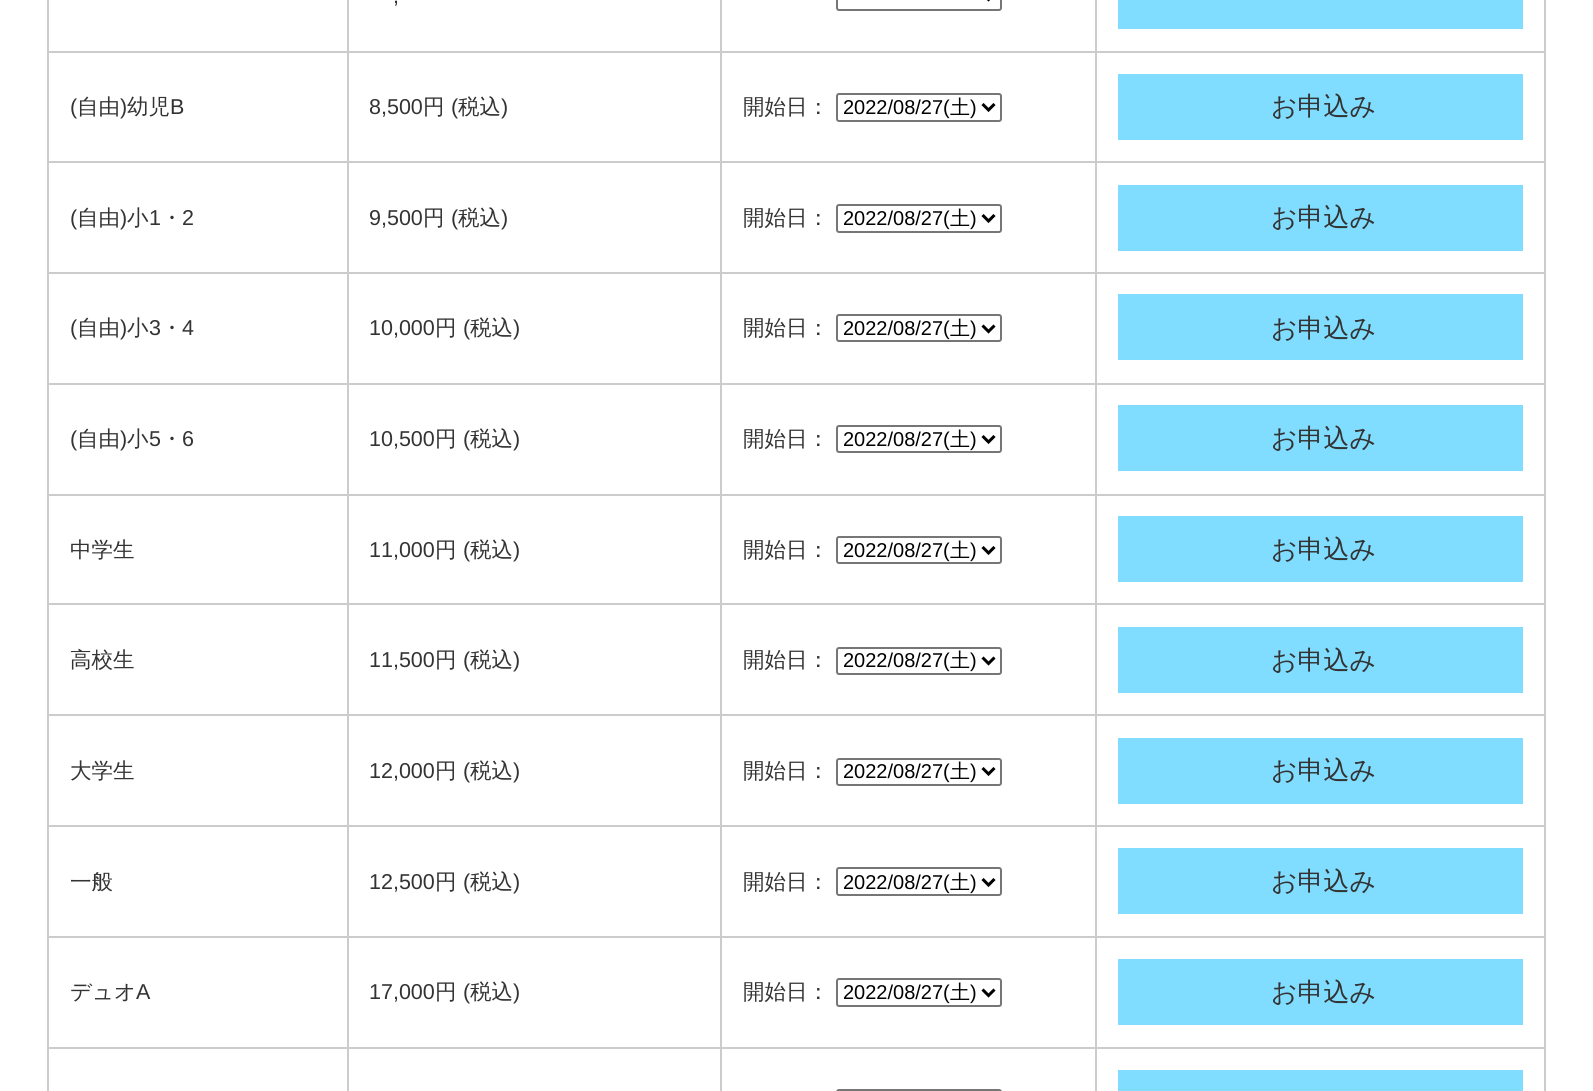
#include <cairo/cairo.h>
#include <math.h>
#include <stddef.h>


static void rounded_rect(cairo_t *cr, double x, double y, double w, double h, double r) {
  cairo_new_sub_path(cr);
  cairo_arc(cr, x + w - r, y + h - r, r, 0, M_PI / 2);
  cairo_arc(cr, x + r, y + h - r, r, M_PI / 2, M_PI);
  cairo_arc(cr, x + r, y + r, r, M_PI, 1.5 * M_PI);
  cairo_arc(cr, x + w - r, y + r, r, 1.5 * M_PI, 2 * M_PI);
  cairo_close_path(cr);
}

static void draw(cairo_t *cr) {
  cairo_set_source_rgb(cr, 1, 1, 1);
  cairo_paint(cr);
  cairo_set_source_rgb(cr, 204 / 255.0, 204 / 255.0, 204 / 255.0);
  cairo_rectangle(cr, 1095, 51, 450, 2);
  cairo_fill(cr);
  cairo_rectangle(cr, 1095, 161, 450, 2);
  cairo_fill(cr);
  cairo_rectangle(cr, 1095, 272, 450, 2);
  cairo_fill(cr);
  cairo_rectangle(cr, 1095, 383, 450, 2);
  cairo_fill(cr);
  cairo_rectangle(cr, 1095, 494, 450, 2);
  cairo_fill(cr);
  cairo_rectangle(cr, 1095, 603, 450, 2);
  cairo_fill(cr);
  cairo_rectangle(cr, 1095, 714, 450, 2);
  cairo_fill(cr);
  cairo_rectangle(cr, 1095, 825, 450, 2);
  cairo_fill(cr);
  cairo_rectangle(cr, 1095, 936, 450, 2);
  cairo_fill(cr);
  cairo_rectangle(cr, 1095, 1047, 450, 2);
  cairo_fill(cr);
  cairo_rectangle(cr, 1095, 1047, 2, 44);
  cairo_fill(cr);
  cairo_rectangle(cr, 720, 1047, 377, 2);
  cairo_fill(cr);
  cairo_rectangle(cr, 1095, 936, 2, 113);
  cairo_fill(cr);
  cairo_rectangle(cr, 720, 936, 377, 2);
  cairo_fill(cr);
  cairo_rectangle(cr, 1095, 825, 2, 113);
  cairo_fill(cr);
  cairo_rectangle(cr, 720, 825, 377, 2);
  cairo_fill(cr);
  cairo_rectangle(cr, 1095, 714, 2, 113);
  cairo_fill(cr);
  cairo_rectangle(cr, 720, 714, 377, 2);
  cairo_fill(cr);
  cairo_rectangle(cr, 1095, 603, 2, 113);
  cairo_fill(cr);
  cairo_rectangle(cr, 720, 603, 377, 2);
  cairo_fill(cr);
  cairo_rectangle(cr, 1095, 494, 2, 111);
  cairo_fill(cr);
  cairo_rectangle(cr, 720, 494, 377, 2);
  cairo_fill(cr);
  cairo_rectangle(cr, 1095, 383, 2, 112);
  cairo_fill(cr);
  cairo_rectangle(cr, 720, 383, 377, 2);
  cairo_fill(cr);
  cairo_rectangle(cr, 1095, 272, 2, 112);
  cairo_fill(cr);
  cairo_rectangle(cr, 720, 272, 377, 2);
  cairo_fill(cr);
  cairo_rectangle(cr, 1095, 161, 2, 112);
  cairo_fill(cr);
  cairo_rectangle(cr, 720, 161, 377, 2);
  cairo_fill(cr);
  cairo_rectangle(cr, 1095, 51, 2, 111);
  cairo_fill(cr);
  cairo_rectangle(cr, 720, 51, 377, 2);
  cairo_fill(cr);
  cairo_rectangle(cr, 720, 1047, 2, 44);
  cairo_fill(cr);
  cairo_rectangle(cr, 347, 1047, 375, 2);
  cairo_fill(cr);
  cairo_rectangle(cr, 720, 936, 2, 113);
  cairo_fill(cr);
  cairo_rectangle(cr, 347, 936, 375, 2);
  cairo_fill(cr);
  cairo_rectangle(cr, 720, 825, 2, 113);
  cairo_fill(cr);
  cairo_rectangle(cr, 347, 825, 375, 2);
  cairo_fill(cr);
  cairo_rectangle(cr, 720, 714, 2, 113);
  cairo_fill(cr);
  cairo_rectangle(cr, 347, 714, 375, 2);
  cairo_fill(cr);
  cairo_rectangle(cr, 720, 603, 2, 113);
  cairo_fill(cr);
  cairo_rectangle(cr, 347, 603, 375, 2);
  cairo_fill(cr);
  cairo_rectangle(cr, 720, 494, 2, 111);
  cairo_fill(cr);
  cairo_rectangle(cr, 347, 494, 375, 2);
  cairo_fill(cr);
  cairo_rectangle(cr, 720, 383, 2, 112);
  cairo_fill(cr);
  cairo_rectangle(cr, 347, 383, 375, 2);
  cairo_fill(cr);
  cairo_rectangle(cr, 720, 272, 2, 112);
  cairo_fill(cr);
  cairo_rectangle(cr, 347, 272, 375, 2);
  cairo_fill(cr);
  cairo_rectangle(cr, 720, 161, 2, 112);
  cairo_fill(cr);
  cairo_rectangle(cr, 347, 161, 375, 2);
  cairo_fill(cr);
  cairo_rectangle(cr, 720, 51, 2, 111);
  cairo_fill(cr);
  cairo_rectangle(cr, 347, 51, 375, 2);
  cairo_fill(cr);
  cairo_rectangle(cr, 347, 1047, 2, 44);
  cairo_fill(cr);
  cairo_rectangle(cr, 47, 1047, 301, 2);
  cairo_fill(cr);
  cairo_rectangle(cr, 347, 936, 2, 113);
  cairo_fill(cr);
  cairo_rectangle(cr, 47, 936, 301, 2);
  cairo_fill(cr);
  cairo_rectangle(cr, 347, 825, 2, 113);
  cairo_fill(cr);
  cairo_rectangle(cr, 47, 825, 301, 2);
  cairo_fill(cr);
  cairo_rectangle(cr, 347, 714, 2, 113);
  cairo_fill(cr);
  cairo_rectangle(cr, 47, 714, 301, 2);
  cairo_fill(cr);
  cairo_rectangle(cr, 347, 603, 2, 113);
  cairo_fill(cr);
  cairo_rectangle(cr, 47, 603, 301, 2);
  cairo_fill(cr);
  cairo_rectangle(cr, 347, 494, 2, 111);
  cairo_fill(cr);
  cairo_rectangle(cr, 47, 494, 301, 2);
  cairo_fill(cr);
  cairo_rectangle(cr, 347, 383, 2, 112);
  cairo_fill(cr);
  cairo_rectangle(cr, 47, 383, 301, 2);
  cairo_fill(cr);
  cairo_rectangle(cr, 347, 272, 2, 112);
  cairo_fill(cr);
  cairo_rectangle(cr, 47, 272, 301, 2);
  cairo_fill(cr);
  cairo_rectangle(cr, 347, 161, 2, 112);
  cairo_fill(cr);
  cairo_rectangle(cr, 47, 161, 301, 2);
  cairo_fill(cr);
  cairo_rectangle(cr, 347, 51, 2, 111);
  cairo_fill(cr);
  cairo_rectangle(cr, 47, 51, 301, 2);
  cairo_fill(cr);
  cairo_rectangle(cr, 347, 0, 2, 53);
  cairo_fill(cr);
  cairo_rectangle(cr, 720, 0, 2, 53);
  cairo_fill(cr);
  rounded_rect(cr, 837, -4, 164, 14, 2);
  cairo_set_source_rgb(cr, 118 / 255.0, 118 / 255.0, 118 / 255.0);
  cairo_stroke(cr);
  cairo_new_path(cr);
  cairo_move_to(cr, 982.5, -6.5);
  cairo_line_to(cr, 988.5, -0.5);
  cairo_line_to(cr, 994.5, -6.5);
  cairo_set_source_rgb(cr, 0, 0, 0);
  cairo_set_line_width(cr, 3);
  cairo_stroke(cr);
  cairo_set_source_rgb(cr, 204 / 255.0, 204 / 255.0, 204 / 255.0);
  cairo_rectangle(cr, 1095, 0, 2, 53);
  cairo_fill(cr);
  cairo_set_source_rgb(cr, 128 / 255.0, 221 / 255.0, 1);
  cairo_rectangle(cr, 1118, 0, 405, 29);
  cairo_fill(cr);
  cairo_set_source_rgb(cr, 204 / 255.0, 204 / 255.0, 204 / 255.0);
  cairo_rectangle(cr, 47, 1047, 2, 44);
  cairo_fill(cr);
  cairo_rectangle(cr, 47, 936, 2, 113);
  cairo_fill(cr);
  cairo_rectangle(cr, 47, 825, 2, 113);
  cairo_fill(cr);
  cairo_rectangle(cr, 47, 714, 2, 113);
  cairo_fill(cr);
  cairo_rectangle(cr, 47, 603, 2, 113);
  cairo_fill(cr);
  cairo_rectangle(cr, 47, 494, 2, 111);
  cairo_fill(cr);
  cairo_rectangle(cr, 47, 383, 2, 112);
  cairo_fill(cr);
  cairo_rectangle(cr, 47, 272, 2, 112);
  cairo_fill(cr);
  cairo_rectangle(cr, 47, 161, 2, 112);
  cairo_fill(cr);
  cairo_rectangle(cr, 47, 0, 2, 162);
  cairo_fill(cr);
  rounded_rect(cr, 837, 94, 164, 27, 2);
  cairo_set_source_rgb(cr, 118 / 255.0, 118 / 255.0, 118 / 255.0);
  cairo_set_line_width(cr, 2);
  cairo_stroke(cr);
  cairo_new_path(cr);
  cairo_move_to(cr, 982.5, 104);
  cairo_line_to(cr, 988.5, 110);
  cairo_line_to(cr, 994.5, 104);
  cairo_set_source_rgb(cr, 0, 0, 0);
  cairo_set_line_width(cr, 3);
  cairo_stroke(cr);
  cairo_set_source_rgb(cr, 204 / 255.0, 204 / 255.0, 204 / 255.0);
  cairo_rectangle(cr, 1544, 1047, 2, 44);
  cairo_fill(cr);
  cairo_rectangle(cr, 1544, 936, 2, 113);
  cairo_fill(cr);
  cairo_rectangle(cr, 1544, 825, 2, 113);
  cairo_fill(cr);
  cairo_rectangle(cr, 1544, 714, 2, 113);
  cairo_fill(cr);
  cairo_rectangle(cr, 1544, 603, 2, 113);
  cairo_fill(cr);
  cairo_rectangle(cr, 1544, 494, 2, 111);
  cairo_fill(cr);
  cairo_rectangle(cr, 1544, 383, 2, 112);
  cairo_fill(cr);
  cairo_rectangle(cr, 1544, 272, 2, 112);
  cairo_fill(cr);
  cairo_rectangle(cr, 1544, 161, 2, 112);
  cairo_fill(cr);
  cairo_rectangle(cr, 1544, 0, 2, 162);
  cairo_fill(cr);
  cairo_set_source_rgb(cr, 128 / 255.0, 221 / 255.0, 1);
  cairo_rectangle(cr, 1118, 74, 405, 66);
  cairo_fill(cr);
  rounded_rect(cr, 837, 205, 164, 27, 2);
  cairo_set_source_rgb(cr, 118 / 255.0, 118 / 255.0, 118 / 255.0);
  cairo_set_line_width(cr, 2);
  cairo_stroke(cr);
  cairo_new_path(cr);
  cairo_move_to(cr, 982.5, 215);
  cairo_line_to(cr, 988.5, 221);
  cairo_line_to(cr, 994.5, 215);
  cairo_set_source_rgb(cr, 0, 0, 0);
  cairo_set_line_width(cr, 3);
  cairo_stroke(cr);
  cairo_set_source_rgb(cr, 128 / 255.0, 221 / 255.0, 1);
  cairo_rectangle(cr, 1118, 185, 405, 66);
  cairo_fill(cr);
  rounded_rect(cr, 837, 315, 164, 26, 2);
  cairo_set_source_rgb(cr, 118 / 255.0, 118 / 255.0, 118 / 255.0);
  cairo_set_line_width(cr, 2);
  cairo_stroke(cr);
  cairo_new_path(cr);
  cairo_move_to(cr, 982.5, 325.5);
  cairo_line_to(cr, 988.5, 331.5);
  cairo_line_to(cr, 994.5, 325.5);
  cairo_set_source_rgb(cr, 0, 0, 0);
  cairo_set_line_width(cr, 3);
  cairo_stroke(cr);
  cairo_set_source_rgb(cr, 128 / 255.0, 221 / 255.0, 1);
  cairo_rectangle(cr, 1118, 294, 405, 66);
  cairo_fill(cr);
  rounded_rect(cr, 837, 426, 164, 26, 2);
  cairo_set_source_rgb(cr, 118 / 255.0, 118 / 255.0, 118 / 255.0);
  cairo_set_line_width(cr, 2);
  cairo_stroke(cr);
  cairo_new_path(cr);
  cairo_move_to(cr, 982.5, 436);
  cairo_line_to(cr, 988.5, 442);
  cairo_line_to(cr, 994.5, 436);
  cairo_set_source_rgb(cr, 0, 0, 0);
  cairo_set_line_width(cr, 3);
  cairo_stroke(cr);
  cairo_set_source_rgb(cr, 128 / 255.0, 221 / 255.0, 1);
  cairo_rectangle(cr, 1118, 405, 405, 66);
  cairo_fill(cr);
  rounded_rect(cr, 837, 537, 164, 26, 2);
  cairo_set_source_rgb(cr, 118 / 255.0, 118 / 255.0, 118 / 255.0);
  cairo_set_line_width(cr, 2);
  cairo_stroke(cr);
  cairo_new_path(cr);
  cairo_move_to(cr, 982.5, 547);
  cairo_line_to(cr, 988.5, 553);
  cairo_line_to(cr, 994.5, 547);
  cairo_set_source_rgb(cr, 0, 0, 0);
  cairo_set_line_width(cr, 3);
  cairo_stroke(cr);
  cairo_set_source_rgb(cr, 128 / 255.0, 221 / 255.0, 1);
  cairo_rectangle(cr, 1118, 516, 405, 66);
  cairo_fill(cr);
  rounded_rect(cr, 837, 648, 164, 26, 2);
  cairo_set_source_rgb(cr, 118 / 255.0, 118 / 255.0, 118 / 255.0);
  cairo_set_line_width(cr, 2);
  cairo_stroke(cr);
  cairo_new_path(cr);
  cairo_move_to(cr, 982.5, 657.5);
  cairo_line_to(cr, 988.5, 663.5);
  cairo_line_to(cr, 994.5, 657.5);
  cairo_set_source_rgb(cr, 0, 0, 0);
  cairo_set_line_width(cr, 3);
  cairo_stroke(cr);
  cairo_set_source_rgb(cr, 128 / 255.0, 221 / 255.0, 1);
  cairo_rectangle(cr, 1118, 627, 405, 66);
  cairo_fill(cr);
  rounded_rect(cr, 837, 759, 164, 26, 2);
  cairo_set_source_rgb(cr, 118 / 255.0, 118 / 255.0, 118 / 255.0);
  cairo_set_line_width(cr, 2);
  cairo_stroke(cr);
  cairo_new_path(cr);
  cairo_move_to(cr, 982.5, 768);
  cairo_line_to(cr, 988.5, 774);
  cairo_line_to(cr, 994.5, 768);
  cairo_set_source_rgb(cr, 0, 0, 0);
  cairo_set_line_width(cr, 3);
  cairo_stroke(cr);
  cairo_set_source_rgb(cr, 128 / 255.0, 221 / 255.0, 1);
  cairo_rectangle(cr, 1118, 738, 405, 66);
  cairo_fill(cr);
  rounded_rect(cr, 837, 868, 164, 27, 2);
  cairo_set_source_rgb(cr, 118 / 255.0, 118 / 255.0, 118 / 255.0);
  cairo_set_line_width(cr, 2);
  cairo_stroke(cr);
  cairo_new_path(cr);
  cairo_move_to(cr, 982.5, 879);
  cairo_line_to(cr, 988.5, 885);
  cairo_line_to(cr, 994.5, 879);
  cairo_set_source_rgb(cr, 0, 0, 0);
  cairo_set_line_width(cr, 3);
  cairo_stroke(cr);
  cairo_set_source_rgb(cr, 128 / 255.0, 221 / 255.0, 1);
  cairo_rectangle(cr, 1118, 848, 405, 66);
  cairo_fill(cr);
  rounded_rect(cr, 837, 979, 164, 27, 2);
  cairo_set_source_rgb(cr, 118 / 255.0, 118 / 255.0, 118 / 255.0);
  cairo_set_line_width(cr, 2);
  cairo_stroke(cr);
  cairo_new_path(cr);
  cairo_move_to(cr, 982.5, 989.5);
  cairo_line_to(cr, 988.5, 995.5);
  cairo_line_to(cr, 994.5, 989.5);
  cairo_set_source_rgb(cr, 0, 0, 0);
  cairo_set_line_width(cr, 3);
  cairo_stroke(cr);
  cairo_set_source_rgb(cr, 128 / 255.0, 221 / 255.0, 1);
  cairo_rectangle(cr, 1118, 959, 405, 66);
  cairo_fill(cr);
  rounded_rect(cr, 837, 1090, 164, 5, 2);
  cairo_set_source_rgb(cr, 118 / 255.0, 118 / 255.0, 118 / 255.0);
  cairo_set_line_width(cr, 2);
  cairo_stroke(cr);
  cairo_set_source_rgb(cr, 128 / 255.0, 221 / 255.0, 1);
  cairo_rectangle(cr, 1118, 1070, 405, 21);
  cairo_fill(cr);
  cairo_select_font_face(cr, "Liberation Sans", CAIRO_FONT_SLANT_NORMAL, CAIRO_FONT_WEIGHT_NORMAL);
  cairo_set_font_size(cr, 21.5);
  cairo_set_source_rgb(cr, 51 / 255.0, 51 / 255.0, 51 / 255.0);
  cairo_move_to(cr, 393, 3);
  cairo_show_text(cr, ",");
  cairo_move_to(cr, 70, 114);
  cairo_show_text(cr, "(");
  cairo_select_font_face(cr, "WenQuanYi Zen Hei Medium", CAIRO_FONT_SLANT_NORMAL, CAIRO_FONT_WEIGHT_NORMAL);
  cairo_move_to(cr, 77, 114);
  cairo_show_text(cr, "自由");
  cairo_select_font_face(cr, "Liberation Sans", CAIRO_FONT_SLANT_NORMAL, CAIRO_FONT_WEIGHT_NORMAL);
  cairo_move_to(cr, 120, 114);
  cairo_show_text(cr, ")");
  cairo_select_font_face(cr, "WenQuanYi Zen Hei Medium", CAIRO_FONT_SLANT_NORMAL, CAIRO_FONT_WEIGHT_NORMAL);
  cairo_move_to(cr, 127, 114);
  cairo_show_text(cr, "幼児");
  cairo_select_font_face(cr, "Liberation Sans", CAIRO_FONT_SLANT_NORMAL, CAIRO_FONT_WEIGHT_NORMAL);
  cairo_move_to(cr, 170, 114);
  cairo_show_text(cr, "B");
  cairo_move_to(cr, 369, 114);
  cairo_show_text(cr, "8,500");
  cairo_select_font_face(cr, "WenQuanYi Zen Hei Medium", CAIRO_FONT_SLANT_NORMAL, CAIRO_FONT_WEIGHT_NORMAL);
  cairo_move_to(cr, 423, 114);
  cairo_show_text(cr, "円");
  cairo_select_font_face(cr, "Liberation Sans", CAIRO_FONT_SLANT_NORMAL, CAIRO_FONT_WEIGHT_NORMAL);
  cairo_move_to(cr, 451, 114);
  cairo_show_text(cr, "(");
  cairo_select_font_face(cr, "WenQuanYi Zen Hei Medium", CAIRO_FONT_SLANT_NORMAL, CAIRO_FONT_WEIGHT_NORMAL);
  cairo_move_to(cr, 458, 114);
  cairo_show_text(cr, "税込");
  cairo_select_font_face(cr, "Liberation Sans", CAIRO_FONT_SLANT_NORMAL, CAIRO_FONT_WEIGHT_NORMAL);
  cairo_move_to(cr, 501, 114);
  cairo_show_text(cr, ")");
  cairo_select_font_face(cr, "WenQuanYi Zen Hei Medium", CAIRO_FONT_SLANT_NORMAL, CAIRO_FONT_WEIGHT_NORMAL);
  cairo_move_to(cr, 743, 114);
  cairo_show_text(cr, "開始日：");
  cairo_select_font_face(cr, "Liberation Sans", CAIRO_FONT_SLANT_NORMAL, CAIRO_FONT_WEIGHT_NORMAL);
  cairo_set_font_size(cr, 20);
  cairo_set_source_rgb(cr, 0, 0, 0);
  cairo_move_to(cr, 843, 114);
  cairo_show_text(cr, "2022/08/27(");
  cairo_select_font_face(cr, "WenQuanYi Zen Hei Medium", CAIRO_FONT_SLANT_NORMAL, CAIRO_FONT_WEIGHT_NORMAL);
  cairo_move_to(cr, 950, 114);
  cairo_show_text(cr, "土");
  cairo_select_font_face(cr, "Liberation Sans", CAIRO_FONT_SLANT_NORMAL, CAIRO_FONT_WEIGHT_NORMAL);
  cairo_move_to(cr, 970, 114);
  cairo_show_text(cr, ")");
  cairo_select_font_face(cr, "WenQuanYi Zen Hei Medium", CAIRO_FONT_SLANT_NORMAL, CAIRO_FONT_WEIGHT_NORMAL);
  cairo_set_font_size(cr, 26);
  cairo_set_source_rgb(cr, 51 / 255.0, 51 / 255.0, 51 / 255.0);
  cairo_move_to(cr, 1271, 115);
  cairo_show_text(cr, "お申込み");
  cairo_select_font_face(cr, "Liberation Sans", CAIRO_FONT_SLANT_NORMAL, CAIRO_FONT_WEIGHT_NORMAL);
  cairo_set_font_size(cr, 21.5);
  cairo_move_to(cr, 70, 225);
  cairo_show_text(cr, "(");
  cairo_select_font_face(cr, "WenQuanYi Zen Hei Medium", CAIRO_FONT_SLANT_NORMAL, CAIRO_FONT_WEIGHT_NORMAL);
  cairo_move_to(cr, 77, 225);
  cairo_show_text(cr, "自由");
  cairo_select_font_face(cr, "Liberation Sans", CAIRO_FONT_SLANT_NORMAL, CAIRO_FONT_WEIGHT_NORMAL);
  cairo_move_to(cr, 120, 225);
  cairo_show_text(cr, ")");
  cairo_select_font_face(cr, "WenQuanYi Zen Hei Medium", CAIRO_FONT_SLANT_NORMAL, CAIRO_FONT_WEIGHT_NORMAL);
  cairo_move_to(cr, 127, 225);
  cairo_show_text(cr, "小");
  cairo_select_font_face(cr, "Liberation Sans", CAIRO_FONT_SLANT_NORMAL, CAIRO_FONT_WEIGHT_NORMAL);
  cairo_move_to(cr, 149, 225);
  cairo_show_text(cr, "1");
  cairo_select_font_face(cr, "WenQuanYi Zen Hei Medium", CAIRO_FONT_SLANT_NORMAL, CAIRO_FONT_WEIGHT_NORMAL);
  cairo_move_to(cr, 161, 225);
  cairo_show_text(cr, "・");
  cairo_select_font_face(cr, "Liberation Sans", CAIRO_FONT_SLANT_NORMAL, CAIRO_FONT_WEIGHT_NORMAL);
  cairo_move_to(cr, 182, 225);
  cairo_show_text(cr, "2");
  cairo_move_to(cr, 369, 225);
  cairo_show_text(cr, "9,500");
  cairo_select_font_face(cr, "WenQuanYi Zen Hei Medium", CAIRO_FONT_SLANT_NORMAL, CAIRO_FONT_WEIGHT_NORMAL);
  cairo_move_to(cr, 423, 225);
  cairo_show_text(cr, "円");
  cairo_select_font_face(cr, "Liberation Sans", CAIRO_FONT_SLANT_NORMAL, CAIRO_FONT_WEIGHT_NORMAL);
  cairo_move_to(cr, 451, 225);
  cairo_show_text(cr, "(");
  cairo_select_font_face(cr, "WenQuanYi Zen Hei Medium", CAIRO_FONT_SLANT_NORMAL, CAIRO_FONT_WEIGHT_NORMAL);
  cairo_move_to(cr, 458, 225);
  cairo_show_text(cr, "税込");
  cairo_select_font_face(cr, "Liberation Sans", CAIRO_FONT_SLANT_NORMAL, CAIRO_FONT_WEIGHT_NORMAL);
  cairo_move_to(cr, 501, 225);
  cairo_show_text(cr, ")");
  cairo_select_font_face(cr, "WenQuanYi Zen Hei Medium", CAIRO_FONT_SLANT_NORMAL, CAIRO_FONT_WEIGHT_NORMAL);
  cairo_move_to(cr, 743, 225);
  cairo_show_text(cr, "開始日：");
  cairo_select_font_face(cr, "Liberation Sans", CAIRO_FONT_SLANT_NORMAL, CAIRO_FONT_WEIGHT_NORMAL);
  cairo_set_font_size(cr, 20);
  cairo_set_source_rgb(cr, 0, 0, 0);
  cairo_move_to(cr, 843, 225);
  cairo_show_text(cr, "2022/08/27(");
  cairo_select_font_face(cr, "WenQuanYi Zen Hei Medium", CAIRO_FONT_SLANT_NORMAL, CAIRO_FONT_WEIGHT_NORMAL);
  cairo_move_to(cr, 950, 225);
  cairo_show_text(cr, "土");
  cairo_select_font_face(cr, "Liberation Sans", CAIRO_FONT_SLANT_NORMAL, CAIRO_FONT_WEIGHT_NORMAL);
  cairo_move_to(cr, 970, 225);
  cairo_show_text(cr, ")");
  cairo_select_font_face(cr, "WenQuanYi Zen Hei Medium", CAIRO_FONT_SLANT_NORMAL, CAIRO_FONT_WEIGHT_NORMAL);
  cairo_set_font_size(cr, 26);
  cairo_set_source_rgb(cr, 51 / 255.0, 51 / 255.0, 51 / 255.0);
  cairo_move_to(cr, 1271, 226);
  cairo_show_text(cr, "お申込み");
  cairo_select_font_face(cr, "Liberation Sans", CAIRO_FONT_SLANT_NORMAL, CAIRO_FONT_WEIGHT_NORMAL);
  cairo_set_font_size(cr, 21.5);
  cairo_move_to(cr, 70, 335);
  cairo_show_text(cr, "(");
  cairo_select_font_face(cr, "WenQuanYi Zen Hei Medium", CAIRO_FONT_SLANT_NORMAL, CAIRO_FONT_WEIGHT_NORMAL);
  cairo_move_to(cr, 77, 335);
  cairo_show_text(cr, "自由");
  cairo_select_font_face(cr, "Liberation Sans", CAIRO_FONT_SLANT_NORMAL, CAIRO_FONT_WEIGHT_NORMAL);
  cairo_move_to(cr, 120, 335);
  cairo_show_text(cr, ")");
  cairo_select_font_face(cr, "WenQuanYi Zen Hei Medium", CAIRO_FONT_SLANT_NORMAL, CAIRO_FONT_WEIGHT_NORMAL);
  cairo_move_to(cr, 127, 335);
  cairo_show_text(cr, "小");
  cairo_select_font_face(cr, "Liberation Sans", CAIRO_FONT_SLANT_NORMAL, CAIRO_FONT_WEIGHT_NORMAL);
  cairo_move_to(cr, 149, 335);
  cairo_show_text(cr, "3");
  cairo_select_font_face(cr, "WenQuanYi Zen Hei Medium", CAIRO_FONT_SLANT_NORMAL, CAIRO_FONT_WEIGHT_NORMAL);
  cairo_move_to(cr, 161, 335);
  cairo_show_text(cr, "・");
  cairo_select_font_face(cr, "Liberation Sans", CAIRO_FONT_SLANT_NORMAL, CAIRO_FONT_WEIGHT_NORMAL);
  cairo_move_to(cr, 182, 335);
  cairo_show_text(cr, "4");
  cairo_move_to(cr, 369, 335);
  cairo_show_text(cr, "10,000");
  cairo_select_font_face(cr, "WenQuanYi Zen Hei Medium", CAIRO_FONT_SLANT_NORMAL, CAIRO_FONT_WEIGHT_NORMAL);
  cairo_move_to(cr, 435, 335);
  cairo_show_text(cr, "円");
  cairo_select_font_face(cr, "Liberation Sans", CAIRO_FONT_SLANT_NORMAL, CAIRO_FONT_WEIGHT_NORMAL);
  cairo_move_to(cr, 463, 335);
  cairo_show_text(cr, "(");
  cairo_select_font_face(cr, "WenQuanYi Zen Hei Medium", CAIRO_FONT_SLANT_NORMAL, CAIRO_FONT_WEIGHT_NORMAL);
  cairo_move_to(cr, 470, 335);
  cairo_show_text(cr, "税込");
  cairo_select_font_face(cr, "Liberation Sans", CAIRO_FONT_SLANT_NORMAL, CAIRO_FONT_WEIGHT_NORMAL);
  cairo_move_to(cr, 513, 335);
  cairo_show_text(cr, ")");
  cairo_select_font_face(cr, "WenQuanYi Zen Hei Medium", CAIRO_FONT_SLANT_NORMAL, CAIRO_FONT_WEIGHT_NORMAL);
  cairo_move_to(cr, 743, 335);
  cairo_show_text(cr, "開始日：");
  cairo_select_font_face(cr, "Liberation Sans", CAIRO_FONT_SLANT_NORMAL, CAIRO_FONT_WEIGHT_NORMAL);
  cairo_set_font_size(cr, 20);
  cairo_set_source_rgb(cr, 0, 0, 0);
  cairo_move_to(cr, 843, 335);
  cairo_show_text(cr, "2022/08/27(");
  cairo_select_font_face(cr, "WenQuanYi Zen Hei Medium", CAIRO_FONT_SLANT_NORMAL, CAIRO_FONT_WEIGHT_NORMAL);
  cairo_move_to(cr, 950, 335);
  cairo_show_text(cr, "土");
  cairo_select_font_face(cr, "Liberation Sans", CAIRO_FONT_SLANT_NORMAL, CAIRO_FONT_WEIGHT_NORMAL);
  cairo_move_to(cr, 970, 335);
  cairo_show_text(cr, ")");
  cairo_select_font_face(cr, "WenQuanYi Zen Hei Medium", CAIRO_FONT_SLANT_NORMAL, CAIRO_FONT_WEIGHT_NORMAL);
  cairo_set_font_size(cr, 26);
  cairo_set_source_rgb(cr, 51 / 255.0, 51 / 255.0, 51 / 255.0);
  cairo_move_to(cr, 1271, 337);
  cairo_show_text(cr, "お申込み");
  cairo_select_font_face(cr, "Liberation Sans", CAIRO_FONT_SLANT_NORMAL, CAIRO_FONT_WEIGHT_NORMAL);
  cairo_set_font_size(cr, 21.5);
  cairo_move_to(cr, 70, 446);
  cairo_show_text(cr, "(");
  cairo_select_font_face(cr, "WenQuanYi Zen Hei Medium", CAIRO_FONT_SLANT_NORMAL, CAIRO_FONT_WEIGHT_NORMAL);
  cairo_move_to(cr, 77, 446);
  cairo_show_text(cr, "自由");
  cairo_select_font_face(cr, "Liberation Sans", CAIRO_FONT_SLANT_NORMAL, CAIRO_FONT_WEIGHT_NORMAL);
  cairo_move_to(cr, 120, 446);
  cairo_show_text(cr, ")");
  cairo_select_font_face(cr, "WenQuanYi Zen Hei Medium", CAIRO_FONT_SLANT_NORMAL, CAIRO_FONT_WEIGHT_NORMAL);
  cairo_move_to(cr, 127, 446);
  cairo_show_text(cr, "小");
  cairo_select_font_face(cr, "Liberation Sans", CAIRO_FONT_SLANT_NORMAL, CAIRO_FONT_WEIGHT_NORMAL);
  cairo_move_to(cr, 149, 446);
  cairo_show_text(cr, "5");
  cairo_select_font_face(cr, "WenQuanYi Zen Hei Medium", CAIRO_FONT_SLANT_NORMAL, CAIRO_FONT_WEIGHT_NORMAL);
  cairo_move_to(cr, 161, 446);
  cairo_show_text(cr, "・");
  cairo_select_font_face(cr, "Liberation Sans", CAIRO_FONT_SLANT_NORMAL, CAIRO_FONT_WEIGHT_NORMAL);
  cairo_move_to(cr, 182, 446);
  cairo_show_text(cr, "6");
  cairo_move_to(cr, 369, 446);
  cairo_show_text(cr, "10,500");
  cairo_select_font_face(cr, "WenQuanYi Zen Hei Medium", CAIRO_FONT_SLANT_NORMAL, CAIRO_FONT_WEIGHT_NORMAL);
  cairo_move_to(cr, 435, 446);
  cairo_show_text(cr, "円");
  cairo_select_font_face(cr, "Liberation Sans", CAIRO_FONT_SLANT_NORMAL, CAIRO_FONT_WEIGHT_NORMAL);
  cairo_move_to(cr, 463, 446);
  cairo_show_text(cr, "(");
  cairo_select_font_face(cr, "WenQuanYi Zen Hei Medium", CAIRO_FONT_SLANT_NORMAL, CAIRO_FONT_WEIGHT_NORMAL);
  cairo_move_to(cr, 470, 446);
  cairo_show_text(cr, "税込");
  cairo_select_font_face(cr, "Liberation Sans", CAIRO_FONT_SLANT_NORMAL, CAIRO_FONT_WEIGHT_NORMAL);
  cairo_move_to(cr, 513, 446);
  cairo_show_text(cr, ")");
  cairo_select_font_face(cr, "WenQuanYi Zen Hei Medium", CAIRO_FONT_SLANT_NORMAL, CAIRO_FONT_WEIGHT_NORMAL);
  cairo_move_to(cr, 743, 446);
  cairo_show_text(cr, "開始日：");
  cairo_select_font_face(cr, "Liberation Sans", CAIRO_FONT_SLANT_NORMAL, CAIRO_FONT_WEIGHT_NORMAL);
  cairo_set_font_size(cr, 20);
  cairo_set_source_rgb(cr, 0, 0, 0);
  cairo_move_to(cr, 843, 446);
  cairo_show_text(cr, "2022/08/27(");
  cairo_select_font_face(cr, "WenQuanYi Zen Hei Medium", CAIRO_FONT_SLANT_NORMAL, CAIRO_FONT_WEIGHT_NORMAL);
  cairo_move_to(cr, 950, 446);
  cairo_show_text(cr, "土");
  cairo_select_font_face(cr, "Liberation Sans", CAIRO_FONT_SLANT_NORMAL, CAIRO_FONT_WEIGHT_NORMAL);
  cairo_move_to(cr, 970, 446);
  cairo_show_text(cr, ")");
  cairo_select_font_face(cr, "WenQuanYi Zen Hei Medium", CAIRO_FONT_SLANT_NORMAL, CAIRO_FONT_WEIGHT_NORMAL);
  cairo_set_font_size(cr, 26);
  cairo_set_source_rgb(cr, 51 / 255.0, 51 / 255.0, 51 / 255.0);
  cairo_move_to(cr, 1271, 447);
  cairo_show_text(cr, "お申込み");
  cairo_set_font_size(cr, 21.5);
  cairo_move_to(cr, 70, 557);
  cairo_show_text(cr, "中学生");
  cairo_select_font_face(cr, "Liberation Sans", CAIRO_FONT_SLANT_NORMAL, CAIRO_FONT_WEIGHT_NORMAL);
  cairo_move_to(cr, 369, 557);
  cairo_show_text(cr, "11,000");
  cairo_select_font_face(cr, "WenQuanYi Zen Hei Medium", CAIRO_FONT_SLANT_NORMAL, CAIRO_FONT_WEIGHT_NORMAL);
  cairo_move_to(cr, 435, 557);
  cairo_show_text(cr, "円");
  cairo_select_font_face(cr, "Liberation Sans", CAIRO_FONT_SLANT_NORMAL, CAIRO_FONT_WEIGHT_NORMAL);
  cairo_move_to(cr, 463, 557);
  cairo_show_text(cr, "(");
  cairo_select_font_face(cr, "WenQuanYi Zen Hei Medium", CAIRO_FONT_SLANT_NORMAL, CAIRO_FONT_WEIGHT_NORMAL);
  cairo_move_to(cr, 470, 557);
  cairo_show_text(cr, "税込");
  cairo_select_font_face(cr, "Liberation Sans", CAIRO_FONT_SLANT_NORMAL, CAIRO_FONT_WEIGHT_NORMAL);
  cairo_move_to(cr, 513, 557);
  cairo_show_text(cr, ")");
  cairo_select_font_face(cr, "WenQuanYi Zen Hei Medium", CAIRO_FONT_SLANT_NORMAL, CAIRO_FONT_WEIGHT_NORMAL);
  cairo_move_to(cr, 743, 557);
  cairo_show_text(cr, "開始日：");
  cairo_select_font_face(cr, "Liberation Sans", CAIRO_FONT_SLANT_NORMAL, CAIRO_FONT_WEIGHT_NORMAL);
  cairo_set_font_size(cr, 20);
  cairo_set_source_rgb(cr, 0, 0, 0);
  cairo_move_to(cr, 843, 557);
  cairo_show_text(cr, "2022/08/27(");
  cairo_select_font_face(cr, "WenQuanYi Zen Hei Medium", CAIRO_FONT_SLANT_NORMAL, CAIRO_FONT_WEIGHT_NORMAL);
  cairo_move_to(cr, 950, 557);
  cairo_show_text(cr, "土");
  cairo_select_font_face(cr, "Liberation Sans", CAIRO_FONT_SLANT_NORMAL, CAIRO_FONT_WEIGHT_NORMAL);
  cairo_move_to(cr, 970, 557);
  cairo_show_text(cr, ")");
  cairo_select_font_face(cr, "WenQuanYi Zen Hei Medium", CAIRO_FONT_SLANT_NORMAL, CAIRO_FONT_WEIGHT_NORMAL);
  cairo_set_font_size(cr, 26);
  cairo_set_source_rgb(cr, 51 / 255.0, 51 / 255.0, 51 / 255.0);
  cairo_move_to(cr, 1271, 558);
  cairo_show_text(cr, "お申込み");
  cairo_set_font_size(cr, 21.5);
  cairo_move_to(cr, 70, 667);
  cairo_show_text(cr, "高校生");
  cairo_select_font_face(cr, "Liberation Sans", CAIRO_FONT_SLANT_NORMAL, CAIRO_FONT_WEIGHT_NORMAL);
  cairo_move_to(cr, 369, 667);
  cairo_show_text(cr, "11,500");
  cairo_select_font_face(cr, "WenQuanYi Zen Hei Medium", CAIRO_FONT_SLANT_NORMAL, CAIRO_FONT_WEIGHT_NORMAL);
  cairo_move_to(cr, 435, 667);
  cairo_show_text(cr, "円");
  cairo_select_font_face(cr, "Liberation Sans", CAIRO_FONT_SLANT_NORMAL, CAIRO_FONT_WEIGHT_NORMAL);
  cairo_move_to(cr, 463, 667);
  cairo_show_text(cr, "(");
  cairo_select_font_face(cr, "WenQuanYi Zen Hei Medium", CAIRO_FONT_SLANT_NORMAL, CAIRO_FONT_WEIGHT_NORMAL);
  cairo_move_to(cr, 470, 667);
  cairo_show_text(cr, "税込");
  cairo_select_font_face(cr, "Liberation Sans", CAIRO_FONT_SLANT_NORMAL, CAIRO_FONT_WEIGHT_NORMAL);
  cairo_move_to(cr, 513, 667);
  cairo_show_text(cr, ")");
  cairo_select_font_face(cr, "WenQuanYi Zen Hei Medium", CAIRO_FONT_SLANT_NORMAL, CAIRO_FONT_WEIGHT_NORMAL);
  cairo_move_to(cr, 743, 667);
  cairo_show_text(cr, "開始日：");
  cairo_select_font_face(cr, "Liberation Sans", CAIRO_FONT_SLANT_NORMAL, CAIRO_FONT_WEIGHT_NORMAL);
  cairo_set_font_size(cr, 20);
  cairo_set_source_rgb(cr, 0, 0, 0);
  cairo_move_to(cr, 843, 667);
  cairo_show_text(cr, "2022/08/27(");
  cairo_select_font_face(cr, "WenQuanYi Zen Hei Medium", CAIRO_FONT_SLANT_NORMAL, CAIRO_FONT_WEIGHT_NORMAL);
  cairo_move_to(cr, 950, 667);
  cairo_show_text(cr, "土");
  cairo_select_font_face(cr, "Liberation Sans", CAIRO_FONT_SLANT_NORMAL, CAIRO_FONT_WEIGHT_NORMAL);
  cairo_move_to(cr, 970, 667);
  cairo_show_text(cr, ")");
  cairo_select_font_face(cr, "WenQuanYi Zen Hei Medium", CAIRO_FONT_SLANT_NORMAL, CAIRO_FONT_WEIGHT_NORMAL);
  cairo_set_font_size(cr, 26);
  cairo_set_source_rgb(cr, 51 / 255.0, 51 / 255.0, 51 / 255.0);
  cairo_move_to(cr, 1271, 669);
  cairo_show_text(cr, "お申込み");
  cairo_set_font_size(cr, 21.5);
  cairo_move_to(cr, 70, 778);
  cairo_show_text(cr, "大学生");
  cairo_select_font_face(cr, "Liberation Sans", CAIRO_FONT_SLANT_NORMAL, CAIRO_FONT_WEIGHT_NORMAL);
  cairo_move_to(cr, 369, 778);
  cairo_show_text(cr, "12,000");
  cairo_select_font_face(cr, "WenQuanYi Zen Hei Medium", CAIRO_FONT_SLANT_NORMAL, CAIRO_FONT_WEIGHT_NORMAL);
  cairo_move_to(cr, 435, 778);
  cairo_show_text(cr, "円");
  cairo_select_font_face(cr, "Liberation Sans", CAIRO_FONT_SLANT_NORMAL, CAIRO_FONT_WEIGHT_NORMAL);
  cairo_move_to(cr, 463, 778);
  cairo_show_text(cr, "(");
  cairo_select_font_face(cr, "WenQuanYi Zen Hei Medium", CAIRO_FONT_SLANT_NORMAL, CAIRO_FONT_WEIGHT_NORMAL);
  cairo_move_to(cr, 470, 778);
  cairo_show_text(cr, "税込");
  cairo_select_font_face(cr, "Liberation Sans", CAIRO_FONT_SLANT_NORMAL, CAIRO_FONT_WEIGHT_NORMAL);
  cairo_move_to(cr, 513, 778);
  cairo_show_text(cr, ")");
  cairo_select_font_face(cr, "WenQuanYi Zen Hei Medium", CAIRO_FONT_SLANT_NORMAL, CAIRO_FONT_WEIGHT_NORMAL);
  cairo_move_to(cr, 743, 778);
  cairo_show_text(cr, "開始日：");
  cairo_select_font_face(cr, "Liberation Sans", CAIRO_FONT_SLANT_NORMAL, CAIRO_FONT_WEIGHT_NORMAL);
  cairo_set_font_size(cr, 20);
  cairo_set_source_rgb(cr, 0, 0, 0);
  cairo_move_to(cr, 843, 778);
  cairo_show_text(cr, "2022/08/27(");
  cairo_select_font_face(cr, "WenQuanYi Zen Hei Medium", CAIRO_FONT_SLANT_NORMAL, CAIRO_FONT_WEIGHT_NORMAL);
  cairo_move_to(cr, 950, 778);
  cairo_show_text(cr, "土");
  cairo_select_font_face(cr, "Liberation Sans", CAIRO_FONT_SLANT_NORMAL, CAIRO_FONT_WEIGHT_NORMAL);
  cairo_move_to(cr, 970, 778);
  cairo_show_text(cr, ")");
  cairo_select_font_face(cr, "WenQuanYi Zen Hei Medium", CAIRO_FONT_SLANT_NORMAL, CAIRO_FONT_WEIGHT_NORMAL);
  cairo_set_font_size(cr, 26);
  cairo_set_source_rgb(cr, 51 / 255.0, 51 / 255.0, 51 / 255.0);
  cairo_move_to(cr, 1271, 779);
  cairo_show_text(cr, "お申込み");
  cairo_set_font_size(cr, 21.5);
  cairo_move_to(cr, 70, 889);
  cairo_show_text(cr, "一般");
  cairo_select_font_face(cr, "Liberation Sans", CAIRO_FONT_SLANT_NORMAL, CAIRO_FONT_WEIGHT_NORMAL);
  cairo_move_to(cr, 369, 889);
  cairo_show_text(cr, "12,500");
  cairo_select_font_face(cr, "WenQuanYi Zen Hei Medium", CAIRO_FONT_SLANT_NORMAL, CAIRO_FONT_WEIGHT_NORMAL);
  cairo_move_to(cr, 435, 889);
  cairo_show_text(cr, "円");
  cairo_select_font_face(cr, "Liberation Sans", CAIRO_FONT_SLANT_NORMAL, CAIRO_FONT_WEIGHT_NORMAL);
  cairo_move_to(cr, 463, 889);
  cairo_show_text(cr, "(");
  cairo_select_font_face(cr, "WenQuanYi Zen Hei Medium", CAIRO_FONT_SLANT_NORMAL, CAIRO_FONT_WEIGHT_NORMAL);
  cairo_move_to(cr, 470, 889);
  cairo_show_text(cr, "税込");
  cairo_select_font_face(cr, "Liberation Sans", CAIRO_FONT_SLANT_NORMAL, CAIRO_FONT_WEIGHT_NORMAL);
  cairo_move_to(cr, 513, 889);
  cairo_show_text(cr, ")");
  cairo_select_font_face(cr, "WenQuanYi Zen Hei Medium", CAIRO_FONT_SLANT_NORMAL, CAIRO_FONT_WEIGHT_NORMAL);
  cairo_move_to(cr, 743, 889);
  cairo_show_text(cr, "開始日：");
  cairo_select_font_face(cr, "Liberation Sans", CAIRO_FONT_SLANT_NORMAL, CAIRO_FONT_WEIGHT_NORMAL);
  cairo_set_font_size(cr, 20);
  cairo_set_source_rgb(cr, 0, 0, 0);
  cairo_move_to(cr, 843, 889);
  cairo_show_text(cr, "2022/08/27(");
  cairo_select_font_face(cr, "WenQuanYi Zen Hei Medium", CAIRO_FONT_SLANT_NORMAL, CAIRO_FONT_WEIGHT_NORMAL);
  cairo_move_to(cr, 950, 889);
  cairo_show_text(cr, "土");
  cairo_select_font_face(cr, "Liberation Sans", CAIRO_FONT_SLANT_NORMAL, CAIRO_FONT_WEIGHT_NORMAL);
  cairo_move_to(cr, 970, 889);
  cairo_show_text(cr, ")");
  cairo_select_font_face(cr, "WenQuanYi Zen Hei Medium", CAIRO_FONT_SLANT_NORMAL, CAIRO_FONT_WEIGHT_NORMAL);
  cairo_set_font_size(cr, 26);
  cairo_set_source_rgb(cr, 51 / 255.0, 51 / 255.0, 51 / 255.0);
  cairo_move_to(cr, 1271, 890);
  cairo_show_text(cr, "お申込み");
  cairo_set_font_size(cr, 21.5);
  cairo_move_to(cr, 70, 999);
  cairo_show_text(cr, "デュオ");
  cairo_select_font_face(cr, "Liberation Sans", CAIRO_FONT_SLANT_NORMAL, CAIRO_FONT_WEIGHT_NORMAL);
  cairo_move_to(cr, 136, 999);
  cairo_show_text(cr, "A");
  cairo_move_to(cr, 369, 999);
  cairo_show_text(cr, "17,000");
  cairo_select_font_face(cr, "WenQuanYi Zen Hei Medium", CAIRO_FONT_SLANT_NORMAL, CAIRO_FONT_WEIGHT_NORMAL);
  cairo_move_to(cr, 435, 999);
  cairo_show_text(cr, "円");
  cairo_select_font_face(cr, "Liberation Sans", CAIRO_FONT_SLANT_NORMAL, CAIRO_FONT_WEIGHT_NORMAL);
  cairo_move_to(cr, 463, 999);
  cairo_show_text(cr, "(");
  cairo_select_font_face(cr, "WenQuanYi Zen Hei Medium", CAIRO_FONT_SLANT_NORMAL, CAIRO_FONT_WEIGHT_NORMAL);
  cairo_move_to(cr, 470, 999);
  cairo_show_text(cr, "税込");
  cairo_select_font_face(cr, "Liberation Sans", CAIRO_FONT_SLANT_NORMAL, CAIRO_FONT_WEIGHT_NORMAL);
  cairo_move_to(cr, 513, 999);
  cairo_show_text(cr, ")");
  cairo_select_font_face(cr, "WenQuanYi Zen Hei Medium", CAIRO_FONT_SLANT_NORMAL, CAIRO_FONT_WEIGHT_NORMAL);
  cairo_move_to(cr, 743, 999);
  cairo_show_text(cr, "開始日：");
  cairo_select_font_face(cr, "Liberation Sans", CAIRO_FONT_SLANT_NORMAL, CAIRO_FONT_WEIGHT_NORMAL);
  cairo_set_font_size(cr, 20);
  cairo_set_source_rgb(cr, 0, 0, 0);
  cairo_move_to(cr, 843, 999);
  cairo_show_text(cr, "2022/08/27(");
  cairo_select_font_face(cr, "WenQuanYi Zen Hei Medium", CAIRO_FONT_SLANT_NORMAL, CAIRO_FONT_WEIGHT_NORMAL);
  cairo_move_to(cr, 950, 999);
  cairo_show_text(cr, "土");
  cairo_select_font_face(cr, "Liberation Sans", CAIRO_FONT_SLANT_NORMAL, CAIRO_FONT_WEIGHT_NORMAL);
  cairo_move_to(cr, 970, 999);
  cairo_show_text(cr, ")");
  cairo_select_font_face(cr, "WenQuanYi Zen Hei Medium", CAIRO_FONT_SLANT_NORMAL, CAIRO_FONT_WEIGHT_NORMAL);
  cairo_set_font_size(cr, 26);
  cairo_set_source_rgb(cr, 51 / 255.0, 51 / 255.0, 51 / 255.0);
  cairo_move_to(cr, 1271, 1001);
  cairo_show_text(cr, "お申込み");
}

int main(void) {
  cairo_surface_t *surface = cairo_image_surface_create(CAIRO_FORMAT_RGB24, 1593, 1091);
  cairo_t *cr = cairo_create(surface);
  cairo_font_options_t *options = cairo_font_options_create();
  cairo_font_options_set_hint_metrics(options, CAIRO_HINT_METRICS_OFF);
  cairo_font_options_set_hint_style(options, CAIRO_HINT_STYLE_NONE);
  cairo_set_font_options(cr, options);
  cairo_set_miter_limit(cr, 4);
  draw(cr);
  cairo_surface_write_to_png(surface, "out.png");
  cairo_font_options_destroy(options);
  cairo_destroy(cr);
  cairo_surface_destroy(surface);
  return 0;
}
